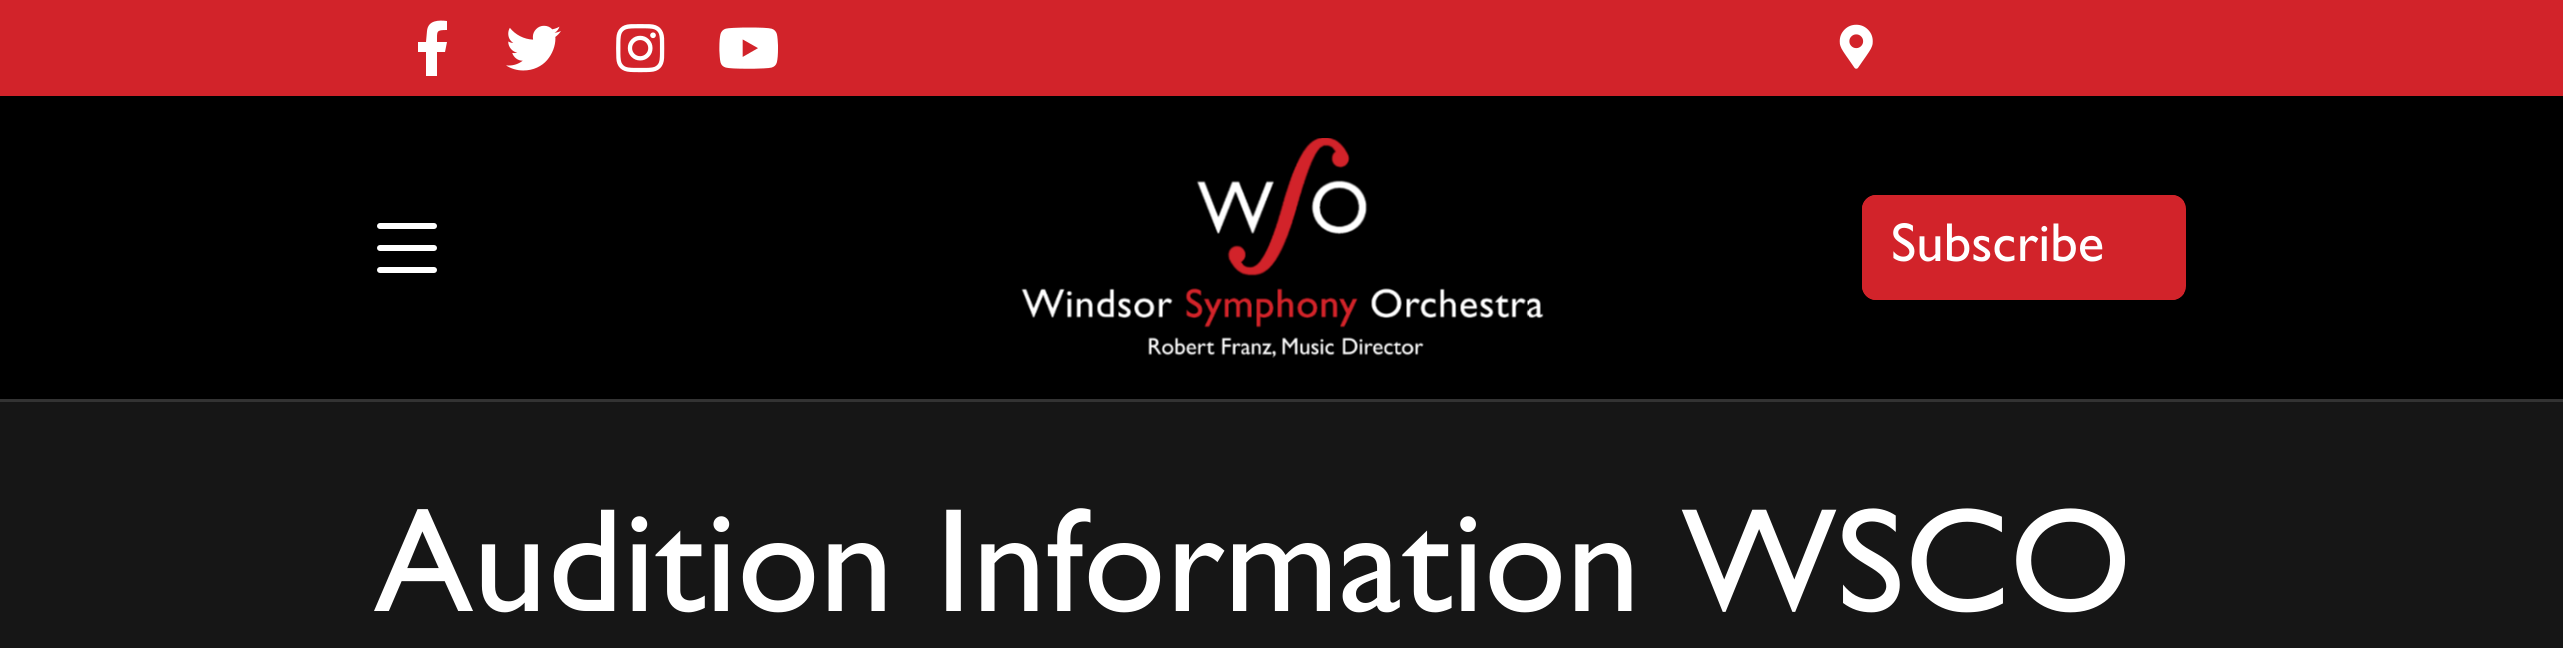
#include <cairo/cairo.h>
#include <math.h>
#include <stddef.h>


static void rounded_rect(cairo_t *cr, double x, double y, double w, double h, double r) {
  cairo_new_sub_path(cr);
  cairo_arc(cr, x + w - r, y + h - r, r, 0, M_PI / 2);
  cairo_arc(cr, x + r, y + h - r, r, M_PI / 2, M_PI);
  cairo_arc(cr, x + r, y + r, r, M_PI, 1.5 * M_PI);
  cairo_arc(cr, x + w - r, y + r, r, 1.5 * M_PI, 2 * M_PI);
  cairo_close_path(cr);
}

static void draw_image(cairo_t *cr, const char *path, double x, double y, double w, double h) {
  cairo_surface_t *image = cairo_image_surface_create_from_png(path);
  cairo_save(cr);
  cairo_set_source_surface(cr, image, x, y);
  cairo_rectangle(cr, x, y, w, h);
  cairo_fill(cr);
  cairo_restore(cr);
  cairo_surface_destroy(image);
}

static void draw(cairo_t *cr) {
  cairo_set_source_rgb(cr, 0, 0, 0);
  cairo_paint(cr);
  cairo_set_source_rgb(cr, 210 / 255.0, 35 / 255.0, 42 / 255.0);
  cairo_rectangle(cr, 0, 0, 2563, 96);
  cairo_fill(cr);
  cairo_set_source_rgb(cr, 1, 1, 1);
  cairo_new_path(cr);
  cairo_move_to(cr, 445, 52);
  cairo_line_to(cr, 437, 52);
  cairo_line_to(cr, 437, 76);
  cairo_line_to(cr, 426, 76);
  cairo_line_to(cr, 426, 52);
  cairo_line_to(cr, 418, 52);
  cairo_line_to(cr, 418, 42);
  cairo_line_to(cr, 426, 42);
  cairo_line_to(cr, 427, 31);
  cairo_curve_to(cr, 428, 20, 439, 20, 447, 21);
  cairo_line_to(cr, 447, 30);
  cairo_curve_to(cr, 436, 30, 437, 31, 437, 42);
  cairo_line_to(cr, 447, 42);
  cairo_close_path(cr);
  cairo_fill(cr);
  draw_image(cr, "images/1.png", 506, 25, 55, 46);
  draw_image(cr, "images/2.png", 616, 24, 49, 49);
  draw_image(cr, "images/3.png", 719, 27, 59, 42);
  draw_image(cr, "images/4.png", 1839, 24, 34, 45);
  cairo_set_source_rgb(cr, 51 / 255.0, 51 / 255.0, 51 / 255.0);
  cairo_rectangle(cr, 0, 399, 2563, 3);
  cairo_fill(cr);
  cairo_set_source_rgb(cr, 1, 1, 1);
  rounded_rect(cr, 377, 245, 60, 6, 3);
  cairo_fill(cr);
  rounded_rect(cr, 377, 223, 60, 6, 3);
  cairo_fill(cr);
  rounded_rect(cr, 377, 267, 60, 6, 3);
  cairo_fill(cr);
  draw_image(cr, "images/5.png", 1196, 138, 172, 138);
  draw_image(cr, "images/6.png", 1021, 288, 523, 70);
  cairo_save(cr);
  rounded_rect(cr, 1862, 195, 324, 105, 14);
  cairo_clip(cr);
  cairo_set_source_rgb(cr, 210 / 255.0, 35 / 255.0, 42 / 255.0);
  cairo_new_path(cr);
  cairo_move_to(cr, 1876, 195);
  cairo_line_to(cr, 2184, 195);
  cairo_line_to(cr, 2184, 300);
  cairo_line_to(cr, 1876, 300);
  cairo_curve_to(cr, 1868.5, 300, 1862, 293.5, 1862, 286);
  cairo_line_to(cr, 1862, 209);
  cairo_curve_to(cr, 1862, 201.5, 1868.5, 195, 1876, 195);
  cairo_close_path(cr);
  cairo_fill(cr);
  cairo_restore(cr);
  rounded_rect(cr, 1863.5, 196.5, 321, 102, 12.5);
  cairo_set_source_rgb(cr, 210 / 255.0, 35 / 255.0, 42 / 255.0);
  cairo_set_line_width(cr, 3);
  cairo_stroke(cr);
  cairo_set_source_rgb(cr, 22 / 255.0, 22 / 255.0, 22 / 255.0);
  cairo_rectangle(cr, 0, 402, 2563, 246);
  cairo_fill(cr);
  cairo_select_font_face(cr, "Gill Sans", CAIRO_FONT_SLANT_NORMAL, CAIRO_FONT_WEIGHT_NORMAL);
  cairo_set_font_size(cr, 55);
  cairo_set_source_rgb(cr, 1, 1, 1);
  cairo_move_to(cr, 1891, 261);
  cairo_show_text(cr, "Subscribe");
  cairo_set_font_size(cr, 148.5);
  cairo_move_to(cr, 374, 611);
  cairo_show_text(cr, "Audition Information WSCO");
}

int main(void) {
  cairo_surface_t *surface = cairo_image_surface_create(CAIRO_FORMAT_RGB24, 2563, 648);
  cairo_t *cr = cairo_create(surface);
  cairo_font_options_t *options = cairo_font_options_create();
  cairo_font_options_set_hint_metrics(options, CAIRO_HINT_METRICS_OFF);
  cairo_font_options_set_hint_style(options, CAIRO_HINT_STYLE_NONE);
  cairo_set_font_options(cr, options);
  cairo_set_miter_limit(cr, 4);
  draw(cr);
  cairo_surface_write_to_png(surface, "out.png");
  cairo_font_options_destroy(options);
  cairo_destroy(cr);
  cairo_surface_destroy(surface);
  return 0;
}
